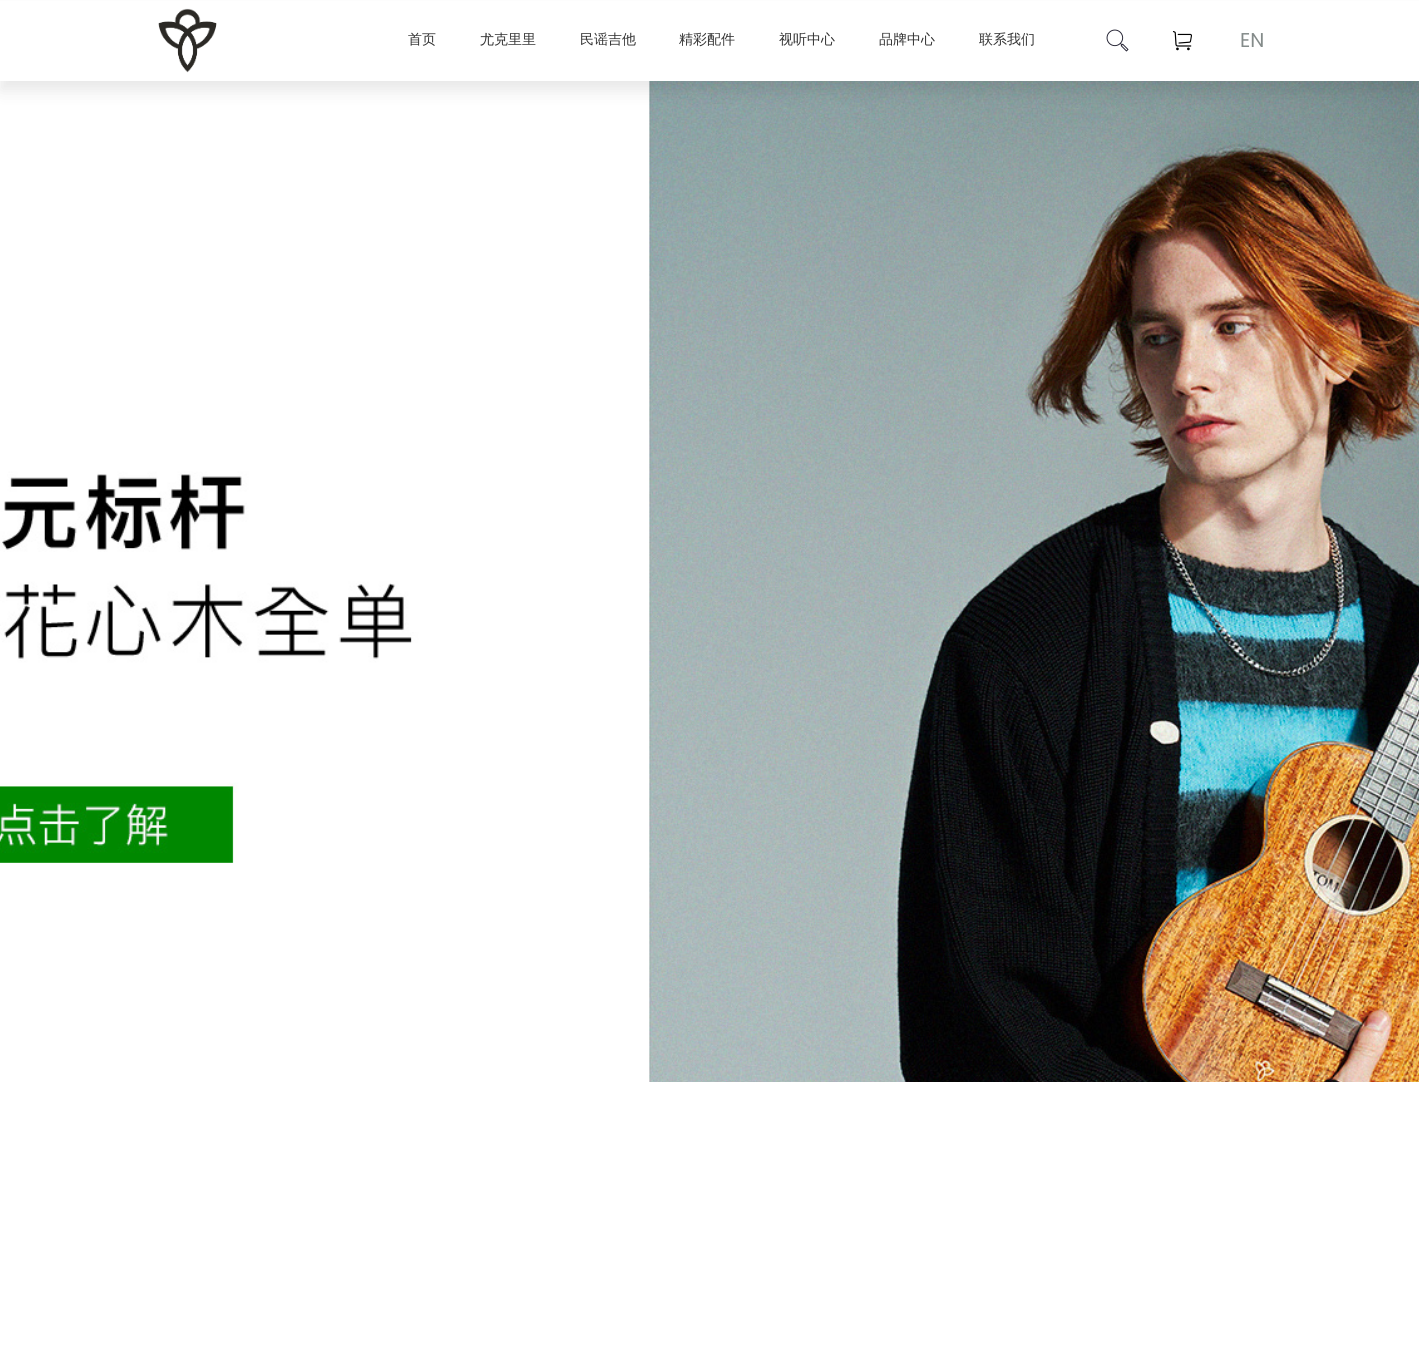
#include <cairo/cairo.h>
#include <math.h>
#include <stddef.h>


static void rounded_rect(cairo_t *cr, double x, double y, double w, double h, double r) {
  cairo_new_sub_path(cr);
  cairo_arc(cr, x + w - r, y + h - r, r, 0, M_PI / 2);
  cairo_arc(cr, x + r, y + h - r, r, M_PI / 2, M_PI);
  cairo_arc(cr, x + r, y + r, r, M_PI, 1.5 * M_PI);
  cairo_arc(cr, x + w - r, y + r, r, 1.5 * M_PI, 2 * M_PI);
  cairo_close_path(cr);
}

static void draw_shadow(cairo_t *cr, double x, double y, double w, double h, double r, double blur, double alpha) {
  cairo_push_group_with_content(cr, CAIRO_CONTENT_ALPHA);
  cairo_set_operator(cr, CAIRO_OPERATOR_SOURCE);
  for (int i = 15; i >= -15 && fmin(w, h) + blur * i / 3 > 0; i -= 2) {
    double e = blur * i / 6;
    cairo_set_source_rgba(cr, 0, 0, 0, alpha * erfc((i - 1) / 8.5) / 2);
    rounded_rect(cr, x - e, y - e, w + 2 * e, h + 2 * e, fmax(0, fmin(r + e + blur * .6, fmin(w, h) / 2 + e)));
    cairo_fill(cr);
  }
  cairo_pattern_t *soft = cairo_pop_group(cr);
  cairo_mask(cr, soft);
  cairo_pattern_destroy(soft);
}

static void draw_image(cairo_t *cr, const char *path, double x, double y, double w, double h) {
  cairo_surface_t *image = cairo_image_surface_create_from_png(path);
  cairo_save(cr);
  cairo_set_source_surface(cr, image, x, y);
  cairo_rectangle(cr, x, y, w, h);
  cairo_fill(cr);
  cairo_restore(cr);
  cairo_surface_destroy(image);
}

static void draw(cairo_t *cr) {
  cairo_set_source_rgb(cr, 1, 1, 1);
  cairo_paint(cr);
  draw_image(cr, "images/4.png", 0, 81, 1419, 1001);
  cairo_set_source_rgb(cr, 25 / 255.0, 25 / 255.0, 25 / 255.0);
  draw_shadow(cr, 0, 10, 1419, 81, 0, 7.5, 0.1);
  cairo_set_source_rgb(cr, 1, 1, 1);
  cairo_rectangle(cr, 0, 1, 1419, 80);
  cairo_fill(cr);
  draw_image(cr, "images/1.png", 158, 8, 59, 65);
  draw_image(cr, "images/2.png", 1106, 29, 23, 23);
  draw_image(cr, "images/3.png", 1172, 31, 20, 20);
  cairo_select_font_face(cr, "WenQuanYi Zen Hei Medium", CAIRO_FONT_SLANT_NORMAL, CAIRO_FONT_WEIGHT_NORMAL);
  cairo_set_font_size(cr, 14);
  cairo_set_source_rgb(cr, 50 / 255.0, 50 / 255.0, 50 / 255.0);
  cairo_move_to(cr, 408, 44);
  cairo_show_text(cr, "首页");
  cairo_move_to(cr, 480, 44);
  cairo_show_text(cr, "尤克里里");
  cairo_move_to(cr, 580, 44);
  cairo_show_text(cr, "民谣吉他");
  cairo_move_to(cr, 679, 44);
  cairo_show_text(cr, "精彩配件");
  cairo_move_to(cr, 779, 44);
  cairo_show_text(cr, "视听中心");
  cairo_move_to(cr, 879, 44);
  cairo_show_text(cr, "品牌中心");
  cairo_move_to(cr, 979, 44);
  cairo_show_text(cr, "联系我们");
  cairo_select_font_face(cr, "Poppins", CAIRO_FONT_SLANT_NORMAL, CAIRO_FONT_WEIGHT_NORMAL);
  cairo_set_font_size(cr, 20);
  cairo_set_source_rgb(cr, 132 / 255.0, 139 / 255.0, 138 / 255.0);
  cairo_move_to(cr, 1240, 47);
  cairo_show_text(cr, "EN");
}

int main(void) {
  cairo_surface_t *surface = cairo_image_surface_create(CAIRO_FORMAT_RGB24, 1419, 1352);
  cairo_t *cr = cairo_create(surface);
  cairo_font_options_t *options = cairo_font_options_create();
  cairo_font_options_set_hint_metrics(options, CAIRO_HINT_METRICS_OFF);
  cairo_font_options_set_hint_style(options, CAIRO_HINT_STYLE_NONE);
  cairo_set_font_options(cr, options);
  cairo_set_miter_limit(cr, 4);
  draw(cr);
  cairo_surface_write_to_png(surface, "out.png");
  cairo_font_options_destroy(options);
  cairo_destroy(cr);
  cairo_surface_destroy(surface);
  return 0;
}
